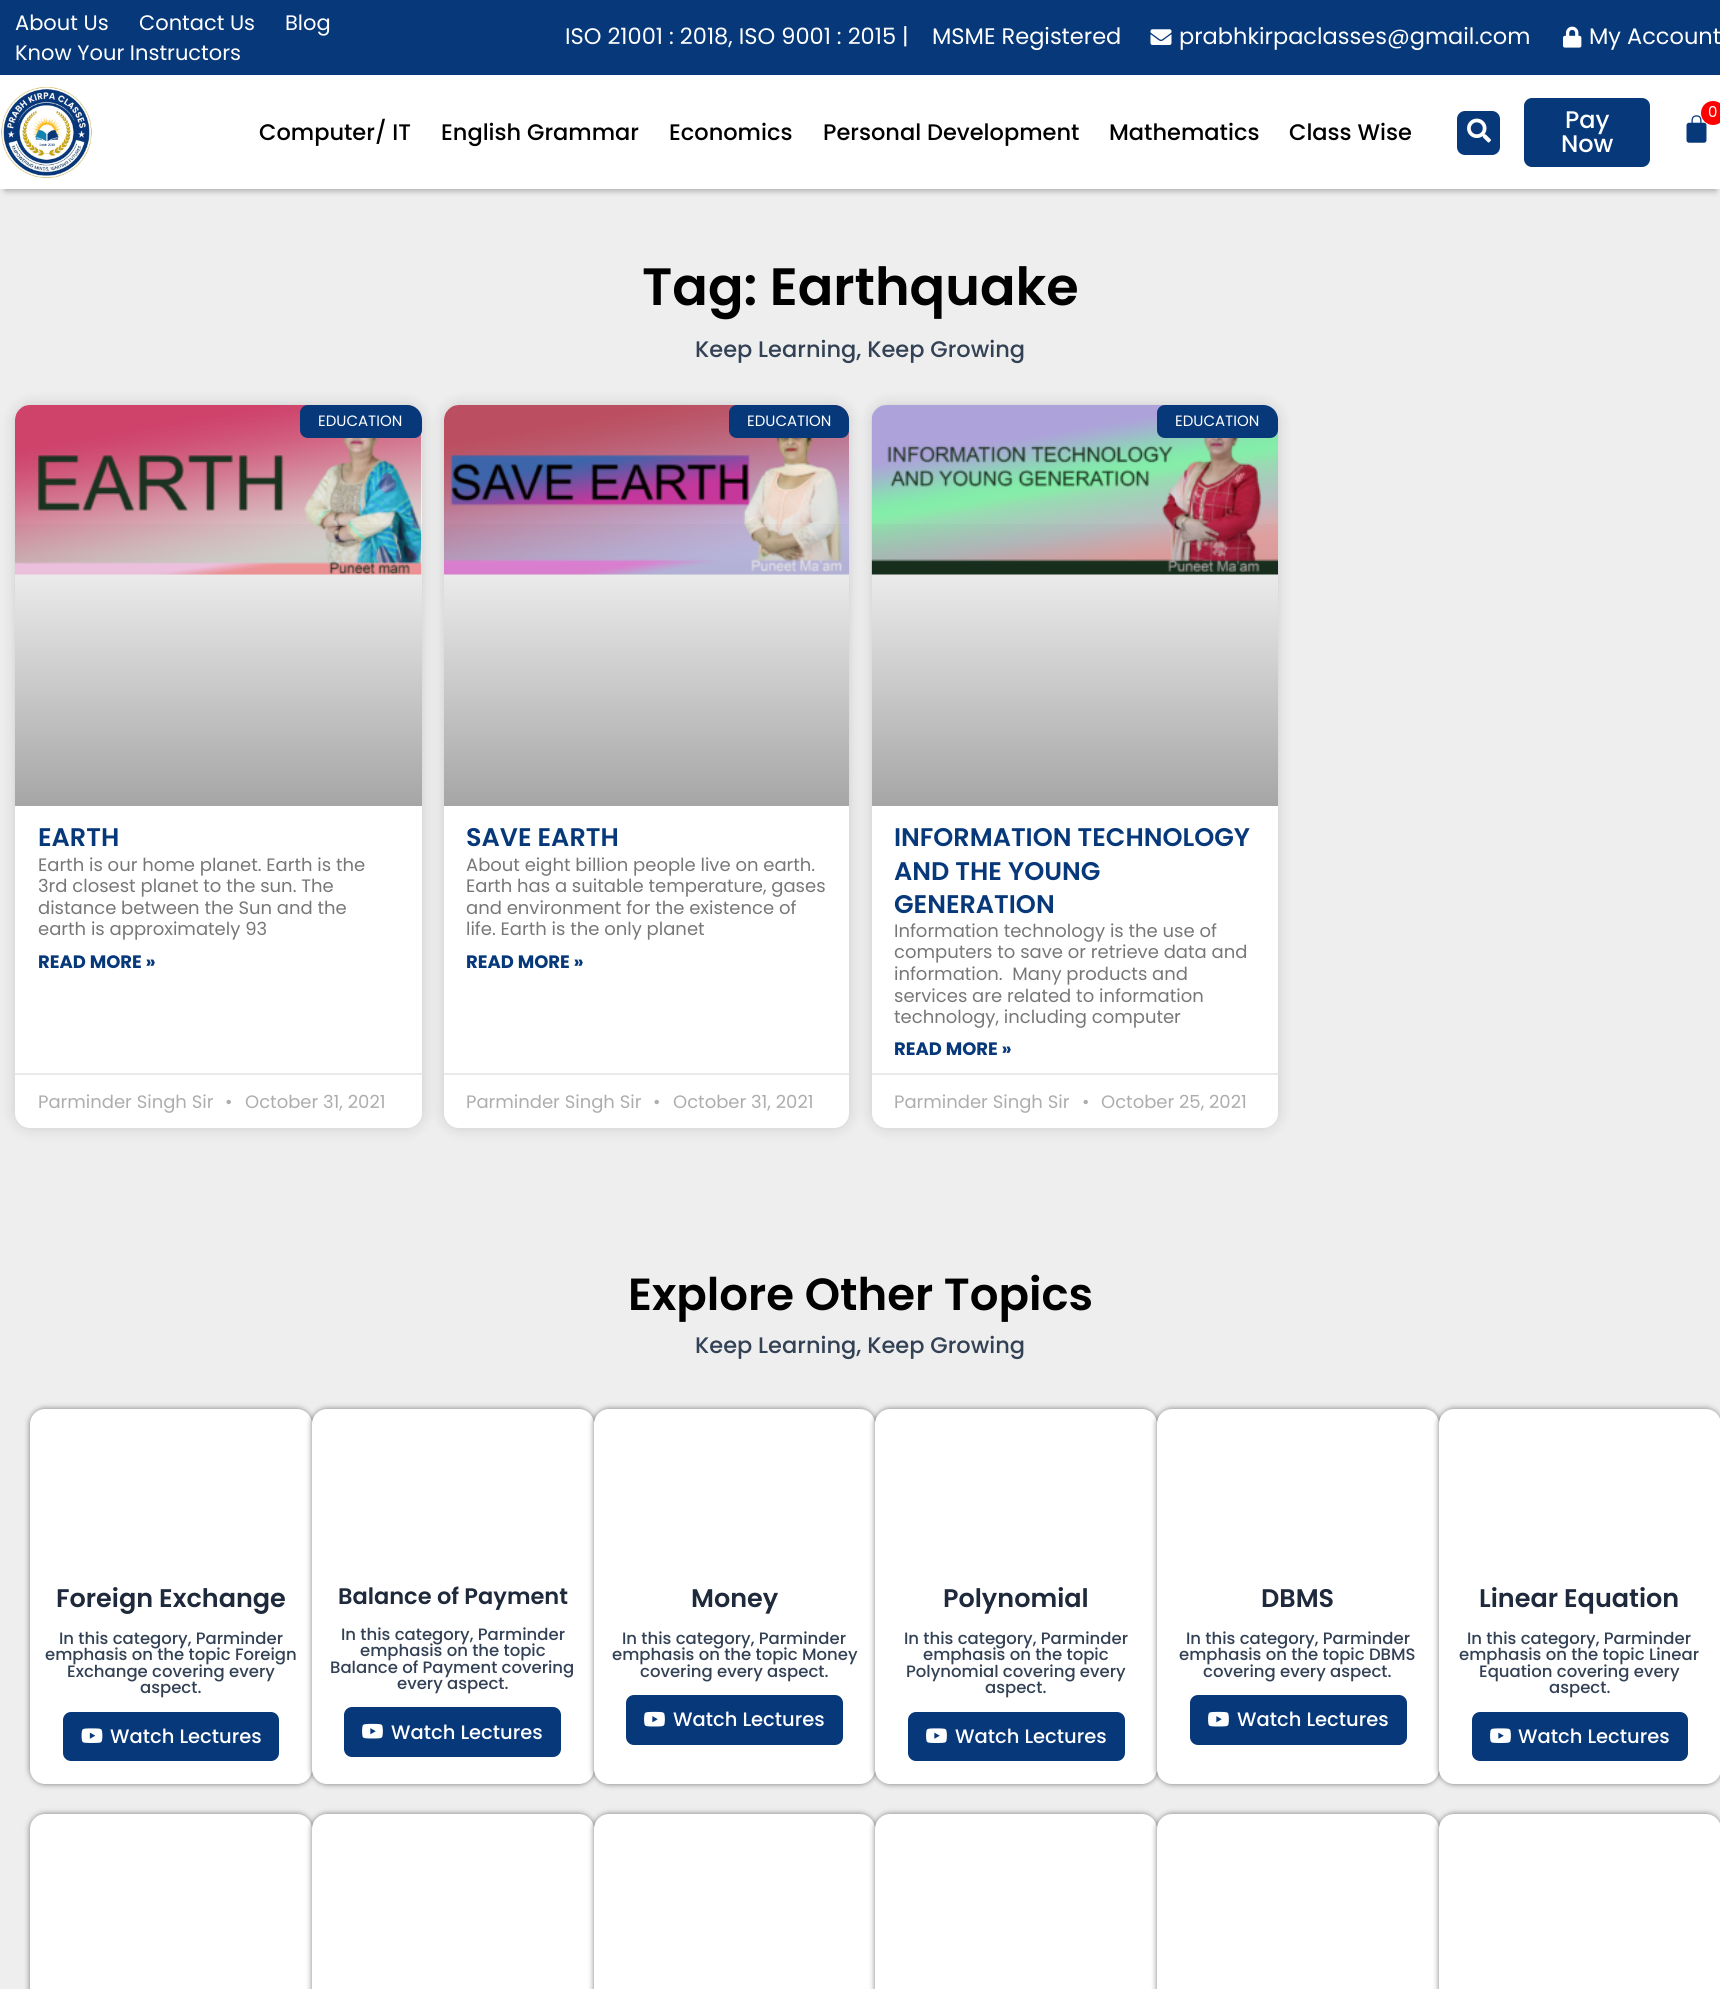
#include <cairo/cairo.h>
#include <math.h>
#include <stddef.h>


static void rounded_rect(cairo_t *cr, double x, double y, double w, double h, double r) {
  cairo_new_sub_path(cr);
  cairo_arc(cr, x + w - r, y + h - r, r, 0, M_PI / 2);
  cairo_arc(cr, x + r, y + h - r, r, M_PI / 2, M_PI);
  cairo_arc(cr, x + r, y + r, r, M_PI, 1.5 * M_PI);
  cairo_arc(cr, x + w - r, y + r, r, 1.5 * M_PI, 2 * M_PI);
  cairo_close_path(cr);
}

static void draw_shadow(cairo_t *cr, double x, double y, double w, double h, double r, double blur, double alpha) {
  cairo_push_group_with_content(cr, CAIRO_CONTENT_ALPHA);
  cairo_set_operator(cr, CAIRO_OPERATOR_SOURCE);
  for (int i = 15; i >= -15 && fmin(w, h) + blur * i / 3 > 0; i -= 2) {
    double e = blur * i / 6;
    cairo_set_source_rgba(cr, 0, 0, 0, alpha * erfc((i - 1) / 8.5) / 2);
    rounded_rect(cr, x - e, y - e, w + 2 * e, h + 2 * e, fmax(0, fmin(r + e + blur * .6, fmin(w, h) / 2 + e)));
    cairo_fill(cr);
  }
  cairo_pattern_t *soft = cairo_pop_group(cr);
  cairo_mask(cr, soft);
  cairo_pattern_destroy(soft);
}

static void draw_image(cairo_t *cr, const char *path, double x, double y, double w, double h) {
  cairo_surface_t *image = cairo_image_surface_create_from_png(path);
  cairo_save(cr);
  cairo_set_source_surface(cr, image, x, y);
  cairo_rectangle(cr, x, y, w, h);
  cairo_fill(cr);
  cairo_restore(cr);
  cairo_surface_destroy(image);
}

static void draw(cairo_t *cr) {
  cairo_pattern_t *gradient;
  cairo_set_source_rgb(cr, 238 / 255.0, 238 / 255.0, 238 / 255.0);
  cairo_paint(cr);
  cairo_set_source_rgb(cr, 6 / 255.0, 56 / 255.0, 122 / 255.0);
  cairo_rectangle(cr, 0, 0, 1720, 75);
  cairo_fill(cr);
  draw_image(cr, "images/1.png", 1150, 29, 22, 16);
  draw_image(cr, "images/2.png", 1563, 26, 19, 22);
  cairo_set_source_rgb(cr, 53 / 255.0, 53 / 255.0, 53 / 255.0);
  draw_shadow(cr, 5, 86, 1711, 105, 0, 3, 0.37);
  cairo_set_source_rgb(cr, 1, 1, 1);
  cairo_rectangle(cr, 0, 75, 1720, 114);
  cairo_fill(cr);
  draw_image(cr, "images/3.png", 1, 86, 91, 93);
  cairo_set_source_rgb(cr, 6 / 255.0, 56 / 255.0, 122 / 255.0);
  rounded_rect(cr, 1457, 111, 43, 44, 8);
  cairo_fill(cr);
  draw_image(cr, "images/4.png", 1467, 118, 24, 25);
  rounded_rect(cr, 1524, 98, 126, 69, 8);
  cairo_fill(cr);
  draw_image(cr, "images/5.png", 1686, 115, 21, 28);
  cairo_set_source_rgb(cr, 1, 0, 0);
  cairo_arc(cr, 1713, 113, 12, 0, 2 * M_PI);
  cairo_fill(cr);
  cairo_set_source_rgb(cr, 0, 0, 0);
  draw_shadow(cr, 15, 405, 407, 723, 15, 7.5, 0.15);
  cairo_set_source_rgb(cr, 1, 1, 1);
  rounded_rect(cr, 15, 405, 407, 723, 15);
  cairo_fill(cr);
  draw_image(cr, "images/6.png", 15, 405, 407, 170);
  gradient = cairo_pattern_create_linear(218, 806, 218, 405);
  cairo_pattern_add_color_stop_rgba(gradient, 0, 0, 0, 0, 0.35);
  cairo_pattern_add_color_stop_rgba(gradient, 0.75, 0, 0, 0, 0);
  cairo_set_source(cr, gradient);
  cairo_pattern_destroy(gradient);
  cairo_rectangle(cr, 15, 524, 407, 282);
  cairo_fill(cr);
  cairo_set_source_rgb(cr, 6 / 255.0, 56 / 255.0, 122 / 255.0);
  cairo_new_path(cr);
  cairo_move_to(cr, 308, 405);
  cairo_line_to(cr, 407, 405);
  cairo_curve_to(cr, 415.5, 405, 422, 411.5, 422, 420);
  cairo_line_to(cr, 422, 430);
  cairo_curve_to(cr, 422, 434.5, 418.5, 438, 414, 438);
  cairo_line_to(cr, 308, 438);
  cairo_curve_to(cr, 303.5, 438, 300, 434.5, 300, 430);
  cairo_line_to(cr, 300, 413);
  cairo_curve_to(cr, 300, 408.5, 303.5, 405, 308, 405);
  cairo_close_path(cr);
  cairo_fill(cr);
  cairo_set_source_rgb(cr, 234 / 255.0, 234 / 255.0, 234 / 255.0);
  cairo_rectangle(cr, 15, 1073, 407, 2);
  cairo_fill(cr);
  cairo_set_source_rgb(cr, 0, 0, 0);
  draw_shadow(cr, 444, 405, 405, 723, 15, 7.5, 0.15);
  cairo_set_source_rgb(cr, 1, 1, 1);
  rounded_rect(cr, 444, 405, 405, 723, 15);
  cairo_fill(cr);
  draw_image(cr, "images/7.png", 444, 405, 405, 170);
  gradient = cairo_pattern_create_linear(647, 806, 647, 405);
  cairo_pattern_add_color_stop_rgba(gradient, 0, 0, 0, 0, 0.35);
  cairo_pattern_add_color_stop_rgba(gradient, 0.75, 0, 0, 0, 0);
  cairo_set_source(cr, gradient);
  cairo_pattern_destroy(gradient);
  cairo_rectangle(cr, 444, 524, 405, 282);
  cairo_fill(cr);
  cairo_set_source_rgb(cr, 6 / 255.0, 56 / 255.0, 122 / 255.0);
  cairo_new_path(cr);
  cairo_move_to(cr, 737, 405);
  cairo_line_to(cr, 834, 405);
  cairo_curve_to(cr, 842.5, 405, 849, 411.5, 849, 420);
  cairo_line_to(cr, 849, 430);
  cairo_curve_to(cr, 849, 434.5, 845.5, 438, 841, 438);
  cairo_line_to(cr, 737, 438);
  cairo_curve_to(cr, 732.5, 438, 729, 434.5, 729, 430);
  cairo_line_to(cr, 729, 413);
  cairo_curve_to(cr, 729, 408.5, 732.5, 405, 737, 405);
  cairo_close_path(cr);
  cairo_fill(cr);
  cairo_set_source_rgb(cr, 234 / 255.0, 234 / 255.0, 234 / 255.0);
  cairo_rectangle(cr, 444, 1073, 405, 2);
  cairo_fill(cr);
  cairo_set_source_rgb(cr, 0, 0, 0);
  draw_shadow(cr, 872, 405, 406, 723, 15, 7.5, 0.15);
  cairo_set_source_rgb(cr, 1, 1, 1);
  rounded_rect(cr, 872, 405, 406, 723, 15);
  cairo_fill(cr);
  draw_image(cr, "images/8.png", 871, 405, 407, 170);
  gradient = cairo_pattern_create_linear(1075, 806, 1075, 405);
  cairo_pattern_add_color_stop_rgba(gradient, 0, 0, 0, 0, 0.35);
  cairo_pattern_add_color_stop_rgba(gradient, 0.75, 0, 0, 0, 0);
  cairo_set_source(cr, gradient);
  cairo_pattern_destroy(gradient);
  cairo_rectangle(cr, 872, 524, 406, 282);
  cairo_fill(cr);
  cairo_set_source_rgb(cr, 6 / 255.0, 56 / 255.0, 122 / 255.0);
  cairo_new_path(cr);
  cairo_move_to(cr, 1165, 405);
  cairo_line_to(cr, 1263, 405);
  cairo_curve_to(cr, 1271.5, 405, 1278, 411.5, 1278, 420);
  cairo_line_to(cr, 1278, 430);
  cairo_curve_to(cr, 1278, 434.5, 1274.5, 438, 1270, 438);
  cairo_line_to(cr, 1165, 438);
  cairo_curve_to(cr, 1160.5, 438, 1157, 434.5, 1157, 430);
  cairo_line_to(cr, 1157, 413);
  cairo_curve_to(cr, 1157, 408.5, 1160.5, 405, 1165, 405);
  cairo_close_path(cr);
  cairo_fill(cr);
  cairo_set_source_rgb(cr, 234 / 255.0, 234 / 255.0, 234 / 255.0);
  cairo_rectangle(cr, 872, 1073, 406, 2);
  cairo_fill(cr);
  cairo_set_source_rgb(cr, 0, 0, 0);
  draw_shadow(cr, 30, 1409, 282, 375, 15, 3, 0.5);
  cairo_set_source_rgb(cr, 1, 1, 1);
  rounded_rect(cr, 30, 1409, 282, 375, 15);
  cairo_fill(cr);
  cairo_set_source_rgb(cr, 6 / 255.0, 56 / 255.0, 122 / 255.0);
  rounded_rect(cr, 63, 1712, 216, 49, 8);
  cairo_fill(cr);
  draw_image(cr, "images/9.png", 81, 1728, 22, 15);
  cairo_set_source_rgb(cr, 0, 0, 0);
  draw_shadow(cr, 312, 1409, 282, 375, 15, 3, 0.5);
  cairo_set_source_rgb(cr, 1, 1, 1);
  rounded_rect(cr, 312, 1409, 282, 375, 15);
  cairo_fill(cr);
  cairo_set_source_rgb(cr, 6 / 255.0, 56 / 255.0, 122 / 255.0);
  rounded_rect(cr, 344, 1707, 217, 50, 8);
  cairo_fill(cr);
  draw_image(cr, "images/10.png", 362, 1723, 21, 16);
  cairo_set_source_rgb(cr, 0, 0, 0);
  draw_shadow(cr, 594, 1409, 281, 375, 15, 3, 0.5);
  cairo_set_source_rgb(cr, 1, 1, 1);
  rounded_rect(cr, 594, 1409, 281, 375, 15);
  cairo_fill(cr);
  cairo_set_source_rgb(cr, 6 / 255.0, 56 / 255.0, 122 / 255.0);
  rounded_rect(cr, 626, 1695, 217, 50, 8);
  cairo_fill(cr);
  draw_image(cr, "images/10.png", 644, 1711, 21, 16);
  cairo_set_source_rgb(cr, 0, 0, 0);
  draw_shadow(cr, 875, 1409, 282, 375, 15, 3, 0.5);
  cairo_set_source_rgb(cr, 1, 1, 1);
  rounded_rect(cr, 875, 1409, 282, 375, 15);
  cairo_fill(cr);
  cairo_set_source_rgb(cr, 6 / 255.0, 56 / 255.0, 122 / 255.0);
  rounded_rect(cr, 908, 1712, 217, 49, 8);
  cairo_fill(cr);
  draw_image(cr, "images/11.png", 926, 1728, 21, 15);
  cairo_set_source_rgb(cr, 0, 0, 0);
  draw_shadow(cr, 1157, 1409, 282, 375, 15, 3, 0.5);
  cairo_set_source_rgb(cr, 1, 1, 1);
  rounded_rect(cr, 1157, 1409, 282, 375, 15);
  cairo_fill(cr);
  cairo_set_source_rgb(cr, 6 / 255.0, 56 / 255.0, 122 / 255.0);
  rounded_rect(cr, 1190, 1695, 217, 50, 8);
  cairo_fill(cr);
  draw_image(cr, "images/10.png", 1208, 1711, 21, 16);
  cairo_set_source_rgb(cr, 0, 0, 0);
  draw_shadow(cr, 1439, 1409, 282, 375, 15, 3, 0.5);
  cairo_set_source_rgb(cr, 1, 1, 1);
  rounded_rect(cr, 1439, 1409, 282, 375, 15);
  cairo_fill(cr);
  cairo_set_source_rgb(cr, 6 / 255.0, 56 / 255.0, 122 / 255.0);
  rounded_rect(cr, 1472, 1712, 216, 49, 8);
  cairo_fill(cr);
  draw_image(cr, "images/11.png", 1490, 1728, 21, 15);
  cairo_set_source_rgb(cr, 0, 0, 0);
  draw_shadow(cr, 30, 1814, 282, 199, 15, 3, 0.5);
  cairo_set_source_rgb(cr, 1, 1, 1);
  rounded_rect(cr, 30, 1814, 282, 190, 15);
  cairo_fill(cr);
  cairo_set_source_rgb(cr, 0, 0, 0);
  draw_shadow(cr, 312, 1814, 282, 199, 15, 3, 0.5);
  cairo_set_source_rgb(cr, 1, 1, 1);
  rounded_rect(cr, 312, 1814, 282, 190, 15);
  cairo_fill(cr);
  cairo_set_source_rgb(cr, 0, 0, 0);
  draw_shadow(cr, 594, 1814, 281, 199, 15, 3, 0.5);
  cairo_set_source_rgb(cr, 1, 1, 1);
  rounded_rect(cr, 594, 1814, 281, 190, 15);
  cairo_fill(cr);
  cairo_set_source_rgb(cr, 0, 0, 0);
  draw_shadow(cr, 875, 1814, 282, 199, 15, 3, 0.5);
  cairo_set_source_rgb(cr, 1, 1, 1);
  rounded_rect(cr, 875, 1814, 282, 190, 15);
  cairo_fill(cr);
  cairo_set_source_rgb(cr, 0, 0, 0);
  draw_shadow(cr, 1157, 1814, 282, 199, 15, 3, 0.5);
  cairo_set_source_rgb(cr, 1, 1, 1);
  rounded_rect(cr, 1157, 1814, 282, 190, 15);
  cairo_fill(cr);
  cairo_set_source_rgb(cr, 0, 0, 0);
  draw_shadow(cr, 1439, 1814, 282, 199, 15, 3, 0.5);
  cairo_set_source_rgb(cr, 1, 1, 1);
  rounded_rect(cr, 1439, 1814, 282, 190, 15);
  cairo_fill(cr);
  cairo_select_font_face(cr, "Poppins", CAIRO_FONT_SLANT_NORMAL, CAIRO_FONT_WEIGHT_NORMAL);
  cairo_set_font_size(cr, 21);
  cairo_move_to(cr, 15, 30);
  cairo_show_text(cr, "About Us");
  cairo_move_to(cr, 139, 30);
  cairo_show_text(cr, "Contact Us");
  cairo_move_to(cr, 285, 30);
  cairo_show_text(cr, "Blog");
  cairo_move_to(cr, 15, 60);
  cairo_show_text(cr, "Know Your Instructors");
  cairo_set_font_size(cr, 22.5);
  cairo_move_to(cr, 565, 44);
  cairo_show_text(cr, "ISO 21001 : 2018, ISO 9001 : 2015 |");
  cairo_move_to(cr, 932, 44);
  cairo_show_text(cr, "MSME Registered");
  cairo_move_to(cr, 1179, 44);
  cairo_show_text(cr, "prabhkirpaclasses@gmail.com");
  cairo_move_to(cr, 1589, 44);
  cairo_show_text(cr, "My Account");
  cairo_select_font_face(cr, "Poppins Medium", CAIRO_FONT_SLANT_NORMAL, CAIRO_FONT_WEIGHT_NORMAL);
  cairo_set_source_rgb(cr, 0, 0, 0);
  cairo_move_to(cr, 259, 140);
  cairo_show_text(cr, "Computer/ IT");
  cairo_move_to(cr, 441, 140);
  cairo_show_text(cr, "English Grammar");
  cairo_move_to(cr, 669, 140);
  cairo_show_text(cr, "Economics");
  cairo_move_to(cr, 823, 140);
  cairo_show_text(cr, "Personal Development");
  cairo_move_to(cr, 1109, 140);
  cairo_show_text(cr, "Mathematics");
  cairo_move_to(cr, 1289, 140);
  cairo_show_text(cr, "Class Wise");
  cairo_set_font_size(cr, 24);
  cairo_set_source_rgb(cr, 1, 1, 1);
  cairo_move_to(cr, 1565, 128);
  cairo_show_text(cr, "Pay");
  cairo_move_to(cr, 1561, 152);
  cairo_show_text(cr, "Now");
  cairo_select_font_face(cr, "Poppins", CAIRO_FONT_SLANT_NORMAL, CAIRO_FONT_WEIGHT_NORMAL);
  cairo_set_font_size(cr, 15);
  cairo_move_to(cr, 1708, 117);
  cairo_show_text(cr, "0");
  cairo_select_font_face(cr, "Poppins SemiBold", CAIRO_FONT_SLANT_NORMAL, CAIRO_FONT_WEIGHT_NORMAL);
  cairo_set_font_size(cr, 52.5);
  cairo_set_source_rgb(cr, 0, 0, 0);
  cairo_move_to(cr, 642, 305);
  cairo_show_text(cr, "Tag: Earthquake");
  cairo_select_font_face(cr, "Poppins Medium", CAIRO_FONT_SLANT_NORMAL, CAIRO_FONT_WEIGHT_NORMAL);
  cairo_set_font_size(cr, 22.5);
  cairo_set_source_rgb(cr, 51 / 255.0, 65 / 255.0, 85 / 255.0);
  cairo_move_to(cr, 695, 357);
  cairo_show_text(cr, "Keep Learning, Keep Growing");
  cairo_select_font_face(cr, "Poppins", CAIRO_FONT_SLANT_NORMAL, CAIRO_FONT_WEIGHT_NORMAL);
  cairo_set_font_size(cr, 15);
  cairo_set_source_rgb(cr, 1, 1, 1);
  cairo_move_to(cr, 318, 426);
  cairo_show_text(cr, "EDUCATION");
  cairo_select_font_face(cr, "Poppins SemiBold", CAIRO_FONT_SLANT_NORMAL, CAIRO_FONT_WEIGHT_NORMAL);
  cairo_set_font_size(cr, 25.5);
  cairo_set_source_rgb(cr, 6 / 255.0, 56 / 255.0, 122 / 255.0);
  cairo_move_to(cr, 38, 846);
  cairo_show_text(cr, "EARTH");
  cairo_select_font_face(cr, "Poppins", CAIRO_FONT_SLANT_NORMAL, CAIRO_FONT_WEIGHT_NORMAL);
  cairo_set_font_size(cr, 18);
  cairo_set_source_rgb(cr, 119 / 255.0, 119 / 255.0, 119 / 255.0);
  cairo_move_to(cr, 38, 871);
  cairo_show_text(cr, "Earth is our home planet. Earth is the");
  cairo_move_to(cr, 38, 892);
  cairo_show_text(cr, "3rd closest planet to the sun. The");
  cairo_move_to(cr, 38, 914);
  cairo_show_text(cr, "distance between the Sun and the");
  cairo_move_to(cr, 38, 935);
  cairo_show_text(cr, "earth is approximately 93");
  cairo_select_font_face(cr, "Poppins", CAIRO_FONT_SLANT_NORMAL, CAIRO_FONT_WEIGHT_BOLD);
  cairo_set_source_rgb(cr, 6 / 255.0, 56 / 255.0, 122 / 255.0);
  cairo_move_to(cr, 38, 968);
  cairo_show_text(cr, "READ MORE »");
  cairo_select_font_face(cr, "Poppins", CAIRO_FONT_SLANT_NORMAL, CAIRO_FONT_WEIGHT_NORMAL);
  cairo_set_source_rgb(cr, 173 / 255.0, 173 / 255.0, 173 / 255.0);
  cairo_move_to(cr, 38, 1108);
  cairo_show_text(cr, "Parminder Singh Sir");
  cairo_move_to(cr, 225, 1108);
  cairo_show_text(cr, "•");
  cairo_move_to(cr, 245, 1108);
  cairo_show_text(cr, "October 31, 2021");
  cairo_set_font_size(cr, 15);
  cairo_set_source_rgb(cr, 1, 1, 1);
  cairo_move_to(cr, 747, 426);
  cairo_show_text(cr, "EDUCATION");
  cairo_select_font_face(cr, "Poppins SemiBold", CAIRO_FONT_SLANT_NORMAL, CAIRO_FONT_WEIGHT_NORMAL);
  cairo_set_font_size(cr, 25.5);
  cairo_set_source_rgb(cr, 6 / 255.0, 56 / 255.0, 122 / 255.0);
  cairo_move_to(cr, 466, 846);
  cairo_show_text(cr, "SAVE EARTH");
  cairo_select_font_face(cr, "Poppins", CAIRO_FONT_SLANT_NORMAL, CAIRO_FONT_WEIGHT_NORMAL);
  cairo_set_font_size(cr, 18);
  cairo_set_source_rgb(cr, 119 / 255.0, 119 / 255.0, 119 / 255.0);
  cairo_move_to(cr, 466, 871);
  cairo_show_text(cr, "About eight billion people live on earth.");
  cairo_move_to(cr, 466, 892);
  cairo_show_text(cr, "Earth has a suitable temperature, gases");
  cairo_move_to(cr, 466, 914);
  cairo_show_text(cr, "and environment for the existence of");
  cairo_move_to(cr, 466, 935);
  cairo_show_text(cr, "life. Earth is the only planet");
  cairo_select_font_face(cr, "Poppins", CAIRO_FONT_SLANT_NORMAL, CAIRO_FONT_WEIGHT_BOLD);
  cairo_set_source_rgb(cr, 6 / 255.0, 56 / 255.0, 122 / 255.0);
  cairo_move_to(cr, 466, 968);
  cairo_show_text(cr, "READ MORE »");
  cairo_select_font_face(cr, "Poppins", CAIRO_FONT_SLANT_NORMAL, CAIRO_FONT_WEIGHT_NORMAL);
  cairo_set_source_rgb(cr, 173 / 255.0, 173 / 255.0, 173 / 255.0);
  cairo_move_to(cr, 466, 1108);
  cairo_show_text(cr, "Parminder Singh Sir");
  cairo_move_to(cr, 653, 1108);
  cairo_show_text(cr, "•");
  cairo_move_to(cr, 673, 1108);
  cairo_show_text(cr, "October 31, 2021");
  cairo_set_font_size(cr, 15);
  cairo_set_source_rgb(cr, 1, 1, 1);
  cairo_move_to(cr, 1175, 426);
  cairo_show_text(cr, "EDUCATION");
  cairo_select_font_face(cr, "Poppins SemiBold", CAIRO_FONT_SLANT_NORMAL, CAIRO_FONT_WEIGHT_NORMAL);
  cairo_set_font_size(cr, 25.5);
  cairo_set_source_rgb(cr, 6 / 255.0, 56 / 255.0, 122 / 255.0);
  cairo_move_to(cr, 894, 846);
  cairo_show_text(cr, "INFORMATION TECHNOLOGY");
  cairo_move_to(cr, 894, 880);
  cairo_show_text(cr, "AND THE YOUNG");
  cairo_move_to(cr, 894, 913);
  cairo_show_text(cr, "GENERATION");
  cairo_select_font_face(cr, "Poppins", CAIRO_FONT_SLANT_NORMAL, CAIRO_FONT_WEIGHT_NORMAL);
  cairo_set_font_size(cr, 18);
  cairo_set_source_rgb(cr, 119 / 255.0, 119 / 255.0, 119 / 255.0);
  cairo_move_to(cr, 894, 937);
  cairo_show_text(cr, "Information technology is the use of");
  cairo_move_to(cr, 894, 958);
  cairo_show_text(cr, "computers to save or retrieve data and");
  cairo_move_to(cr, 894, 980);
  cairo_show_text(cr, "information.  Many products and");
  cairo_move_to(cr, 894, 1002);
  cairo_show_text(cr, "services are related to information");
  cairo_move_to(cr, 894, 1023);
  cairo_show_text(cr, "technology, including computer");
  cairo_select_font_face(cr, "Poppins", CAIRO_FONT_SLANT_NORMAL, CAIRO_FONT_WEIGHT_BOLD);
  cairo_set_source_rgb(cr, 6 / 255.0, 56 / 255.0, 122 / 255.0);
  cairo_move_to(cr, 894, 1055);
  cairo_show_text(cr, "READ MORE »");
  cairo_select_font_face(cr, "Poppins", CAIRO_FONT_SLANT_NORMAL, CAIRO_FONT_WEIGHT_NORMAL);
  cairo_set_source_rgb(cr, 173 / 255.0, 173 / 255.0, 173 / 255.0);
  cairo_move_to(cr, 894, 1108);
  cairo_show_text(cr, "Parminder Singh Sir");
  cairo_move_to(cr, 1082, 1108);
  cairo_show_text(cr, "•");
  cairo_move_to(cr, 1101, 1108);
  cairo_show_text(cr, "October 25, 2021");
  cairo_select_font_face(cr, "Poppins SemiBold", CAIRO_FONT_SLANT_NORMAL, CAIRO_FONT_WEIGHT_NORMAL);
  cairo_set_font_size(cr, 45);
  cairo_set_source_rgb(cr, 0, 0, 0);
  cairo_move_to(cr, 628, 1310);
  cairo_show_text(cr, "Explore Other Topics");
  cairo_select_font_face(cr, "Poppins Medium", CAIRO_FONT_SLANT_NORMAL, CAIRO_FONT_WEIGHT_NORMAL);
  cairo_set_font_size(cr, 22.5);
  cairo_set_source_rgb(cr, 51 / 255.0, 65 / 255.0, 85 / 255.0);
  cairo_move_to(cr, 695, 1353);
  cairo_show_text(cr, "Keep Learning, Keep Growing");
  cairo_select_font_face(cr, "Poppins SemiBold", CAIRO_FONT_SLANT_NORMAL, CAIRO_FONT_WEIGHT_NORMAL);
  cairo_set_font_size(cr, 25.5);
  cairo_set_source_rgb(cr, 30 / 255.0, 41 / 255.0, 59 / 255.0);
  cairo_move_to(cr, 56, 1607);
  cairo_show_text(cr, "Foreign Exchange");
  cairo_select_font_face(cr, "Poppins Medium", CAIRO_FONT_SLANT_NORMAL, CAIRO_FONT_WEIGHT_NORMAL);
  cairo_set_font_size(cr, 16.5);
  cairo_set_source_rgb(cr, 51 / 255.0, 65 / 255.0, 85 / 255.0);
  cairo_move_to(cr, 59, 1644);
  cairo_show_text(cr, "In this category, Parminder");
  cairo_move_to(cr, 45, 1660);
  cairo_show_text(cr, "emphasis on the topic Foreign");
  cairo_move_to(cr, 67, 1677);
  cairo_show_text(cr, "Exchange covering every");
  cairo_move_to(cr, 140, 1693);
  cairo_show_text(cr, "aspect.");
  cairo_set_font_size(cr, 19.5);
  cairo_set_source_rgb(cr, 1, 1, 1);
  cairo_move_to(cr, 110, 1743);
  cairo_show_text(cr, "Watch Lectures");
  cairo_select_font_face(cr, "Poppins SemiBold", CAIRO_FONT_SLANT_NORMAL, CAIRO_FONT_WEIGHT_NORMAL);
  cairo_set_font_size(cr, 22.5);
  cairo_set_source_rgb(cr, 30 / 255.0, 41 / 255.0, 59 / 255.0);
  cairo_move_to(cr, 338, 1604);
  cairo_show_text(cr, "Balance of Payment");
  cairo_select_font_face(cr, "Poppins Medium", CAIRO_FONT_SLANT_NORMAL, CAIRO_FONT_WEIGHT_NORMAL);
  cairo_set_font_size(cr, 16.5);
  cairo_set_source_rgb(cr, 51 / 255.0, 65 / 255.0, 85 / 255.0);
  cairo_move_to(cr, 341, 1640);
  cairo_show_text(cr, "In this category, Parminder");
  cairo_move_to(cr, 360, 1656);
  cairo_show_text(cr, "emphasis on the topic");
  cairo_move_to(cr, 330, 1673);
  cairo_show_text(cr, "Balance of Payment covering");
  cairo_move_to(cr, 397, 1689);
  cairo_show_text(cr, "every aspect.");
  cairo_set_font_size(cr, 19.5);
  cairo_set_source_rgb(cr, 1, 1, 1);
  cairo_move_to(cr, 391, 1739);
  cairo_show_text(cr, "Watch Lectures");
  cairo_select_font_face(cr, "Poppins SemiBold", CAIRO_FONT_SLANT_NORMAL, CAIRO_FONT_WEIGHT_NORMAL);
  cairo_set_font_size(cr, 25.5);
  cairo_set_source_rgb(cr, 30 / 255.0, 41 / 255.0, 59 / 255.0);
  cairo_move_to(cr, 691, 1607);
  cairo_show_text(cr, "Money");
  cairo_select_font_face(cr, "Poppins Medium", CAIRO_FONT_SLANT_NORMAL, CAIRO_FONT_WEIGHT_NORMAL);
  cairo_set_font_size(cr, 16.5);
  cairo_set_source_rgb(cr, 51 / 255.0, 65 / 255.0, 85 / 255.0);
  cairo_move_to(cr, 622, 1644);
  cairo_show_text(cr, "In this category, Parminder");
  cairo_move_to(cr, 612, 1660);
  cairo_show_text(cr, "emphasis on the topic Money");
  cairo_move_to(cr, 640, 1677);
  cairo_show_text(cr, "covering every aspect.");
  cairo_set_font_size(cr, 19.5);
  cairo_set_source_rgb(cr, 1, 1, 1);
  cairo_move_to(cr, 673, 1726);
  cairo_show_text(cr, "Watch Lectures");
  cairo_select_font_face(cr, "Poppins SemiBold", CAIRO_FONT_SLANT_NORMAL, CAIRO_FONT_WEIGHT_NORMAL);
  cairo_set_font_size(cr, 25.5);
  cairo_set_source_rgb(cr, 30 / 255.0, 41 / 255.0, 59 / 255.0);
  cairo_move_to(cr, 943, 1607);
  cairo_show_text(cr, "Polynomial");
  cairo_select_font_face(cr, "Poppins Medium", CAIRO_FONT_SLANT_NORMAL, CAIRO_FONT_WEIGHT_NORMAL);
  cairo_set_font_size(cr, 16.5);
  cairo_set_source_rgb(cr, 51 / 255.0, 65 / 255.0, 85 / 255.0);
  cairo_move_to(cr, 904, 1644);
  cairo_show_text(cr, "In this category, Parminder");
  cairo_move_to(cr, 923, 1660);
  cairo_show_text(cr, "emphasis on the topic");
  cairo_move_to(cr, 906, 1677);
  cairo_show_text(cr, "Polynomial covering every");
  cairo_move_to(cr, 985, 1693);
  cairo_show_text(cr, "aspect.");
  cairo_set_font_size(cr, 19.5);
  cairo_set_source_rgb(cr, 1, 1, 1);
  cairo_move_to(cr, 955, 1743);
  cairo_show_text(cr, "Watch Lectures");
  cairo_select_font_face(cr, "Poppins SemiBold", CAIRO_FONT_SLANT_NORMAL, CAIRO_FONT_WEIGHT_NORMAL);
  cairo_set_font_size(cr, 25.5);
  cairo_set_source_rgb(cr, 30 / 255.0, 41 / 255.0, 59 / 255.0);
  cairo_move_to(cr, 1261, 1607);
  cairo_show_text(cr, "DBMS");
  cairo_select_font_face(cr, "Poppins Medium", CAIRO_FONT_SLANT_NORMAL, CAIRO_FONT_WEIGHT_NORMAL);
  cairo_set_font_size(cr, 16.5);
  cairo_set_source_rgb(cr, 51 / 255.0, 65 / 255.0, 85 / 255.0);
  cairo_move_to(cr, 1186, 1644);
  cairo_show_text(cr, "In this category, Parminder");
  cairo_move_to(cr, 1179, 1660);
  cairo_show_text(cr, "emphasis on the topic DBMS");
  cairo_move_to(cr, 1203, 1677);
  cairo_show_text(cr, "covering every aspect.");
  cairo_set_font_size(cr, 19.5);
  cairo_set_source_rgb(cr, 1, 1, 1);
  cairo_move_to(cr, 1237, 1726);
  cairo_show_text(cr, "Watch Lectures");
  cairo_select_font_face(cr, "Poppins SemiBold", CAIRO_FONT_SLANT_NORMAL, CAIRO_FONT_WEIGHT_NORMAL);
  cairo_set_font_size(cr, 25.5);
  cairo_set_source_rgb(cr, 30 / 255.0, 41 / 255.0, 59 / 255.0);
  cairo_move_to(cr, 1479, 1607);
  cairo_show_text(cr, "Linear Equation");
  cairo_select_font_face(cr, "Poppins Medium", CAIRO_FONT_SLANT_NORMAL, CAIRO_FONT_WEIGHT_NORMAL);
  cairo_set_font_size(cr, 16.5);
  cairo_set_source_rgb(cr, 51 / 255.0, 65 / 255.0, 85 / 255.0);
  cairo_move_to(cr, 1467, 1644);
  cairo_show_text(cr, "In this category, Parminder");
  cairo_move_to(cr, 1459, 1660);
  cairo_show_text(cr, "emphasis on the topic Linear");
  cairo_move_to(cr, 1479, 1677);
  cairo_show_text(cr, "Equation covering every");
  cairo_move_to(cr, 1549, 1693);
  cairo_show_text(cr, "aspect.");
  cairo_set_font_size(cr, 19.5);
  cairo_set_source_rgb(cr, 1, 1, 1);
  cairo_move_to(cr, 1518, 1743);
  cairo_show_text(cr, "Watch Lectures");
}

int main(void) {
  cairo_surface_t *surface = cairo_image_surface_create(CAIRO_FORMAT_RGB24, 1720, 1989);
  cairo_t *cr = cairo_create(surface);
  cairo_font_options_t *options = cairo_font_options_create();
  cairo_font_options_set_hint_metrics(options, CAIRO_HINT_METRICS_OFF);
  cairo_font_options_set_hint_style(options, CAIRO_HINT_STYLE_NONE);
  cairo_set_font_options(cr, options);
  cairo_set_miter_limit(cr, 4);
  draw(cr);
  cairo_surface_write_to_png(surface, "out.png");
  cairo_font_options_destroy(options);
  cairo_destroy(cr);
  cairo_surface_destroy(surface);
  return 0;
}
